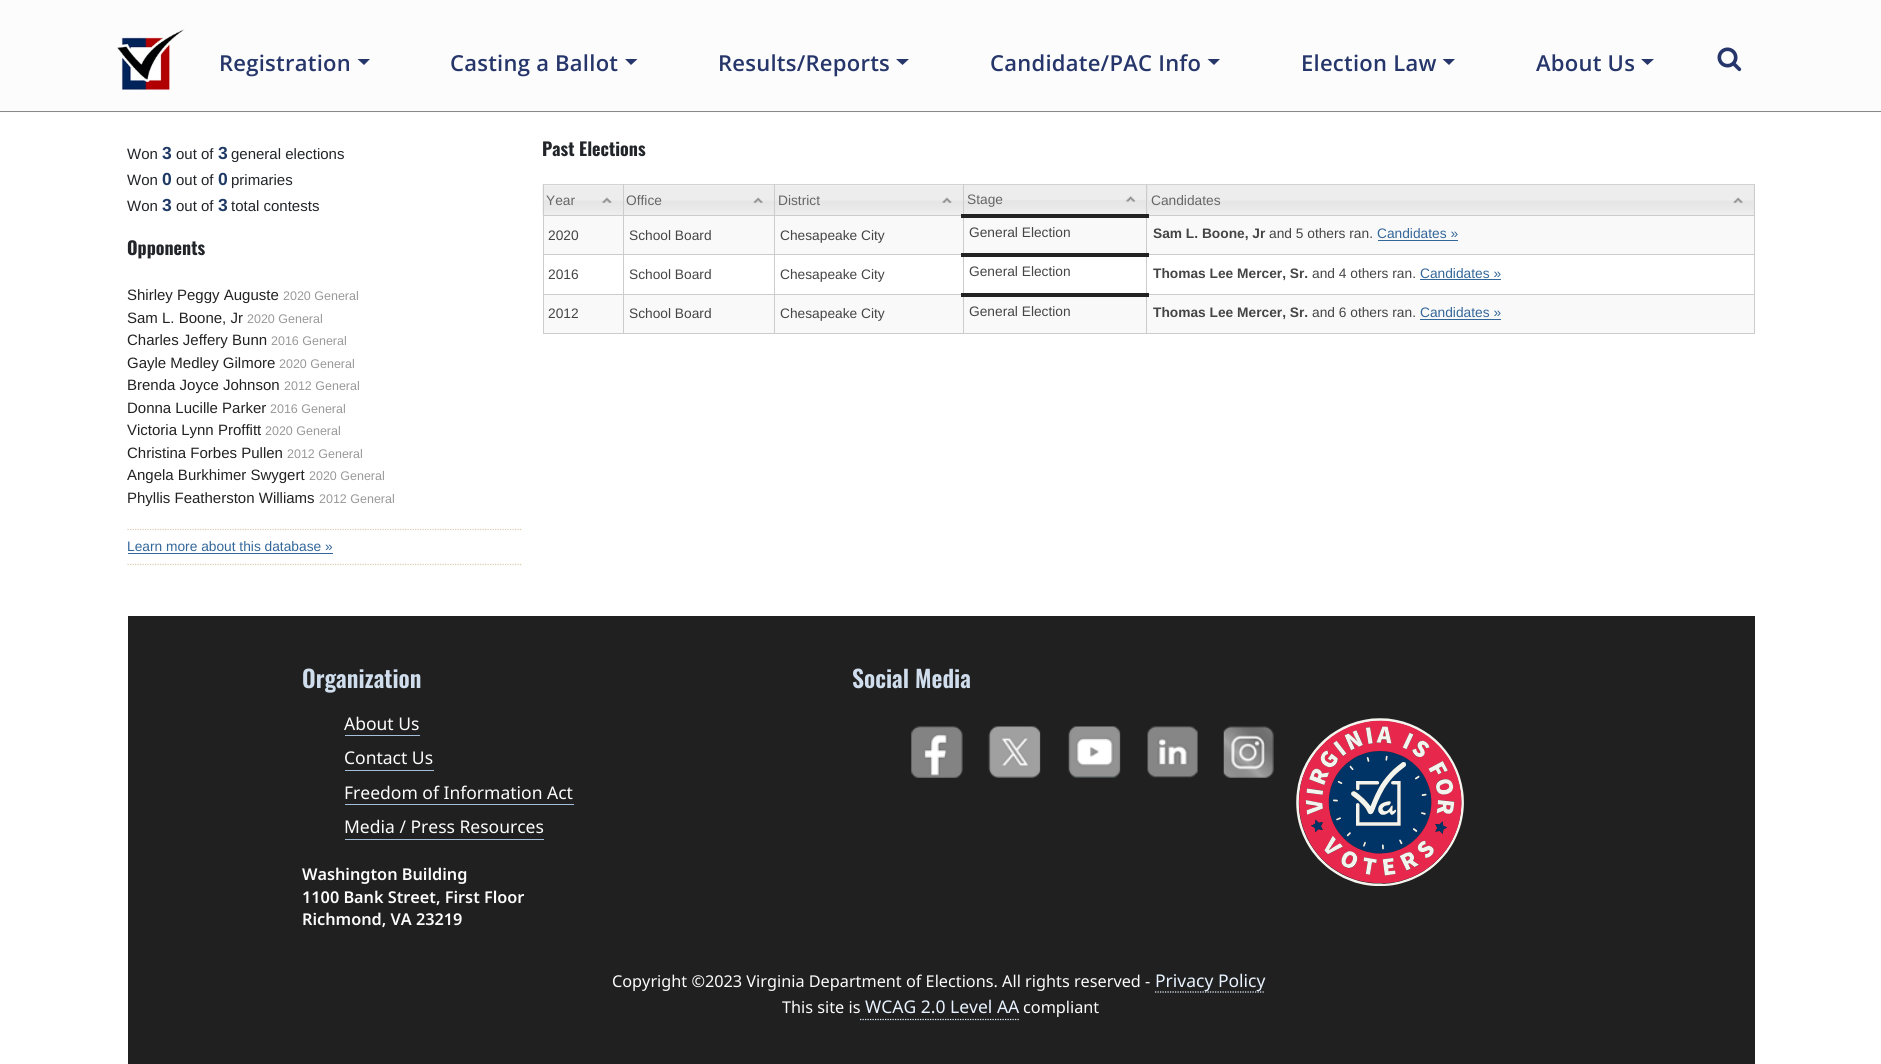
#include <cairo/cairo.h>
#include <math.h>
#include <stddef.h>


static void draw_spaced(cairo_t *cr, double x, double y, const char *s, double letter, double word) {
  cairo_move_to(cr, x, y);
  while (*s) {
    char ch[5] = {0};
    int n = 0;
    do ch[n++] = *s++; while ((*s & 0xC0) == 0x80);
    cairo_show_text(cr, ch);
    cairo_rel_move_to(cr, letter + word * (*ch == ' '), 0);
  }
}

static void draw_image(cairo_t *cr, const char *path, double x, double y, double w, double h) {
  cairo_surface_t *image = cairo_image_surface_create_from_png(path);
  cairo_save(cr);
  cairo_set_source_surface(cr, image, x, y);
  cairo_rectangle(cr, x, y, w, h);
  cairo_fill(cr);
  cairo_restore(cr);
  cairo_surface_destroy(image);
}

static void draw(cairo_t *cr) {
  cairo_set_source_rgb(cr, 1, 1, 1);
  cairo_paint(cr);
  cairo_set_source_rgb(cr, 252 / 255.0, 252 / 255.0, 252 / 255.0);
  cairo_rectangle(cr, 0, 0, 1881, 113);
  cairo_fill(cr);
  cairo_set_source_rgb(cr, 137 / 255.0, 137 / 255.0, 135 / 255.0);
  cairo_rectangle(cr, 0, 111, 1881, 1);
  cairo_fill(cr);
  draw_image(cr, "images/1.png", 117, 29, 68, 61);
  cairo_set_source_rgb(cr, 38 / 255.0, 54 / 255.0, 106 / 255.0);
  cairo_new_path(cr);
  cairo_move_to(cr, 357.5, 59);
  cairo_line_to(cr, 370, 59);
  cairo_line_to(cr, 364, 65);
  cairo_close_path(cr);
  cairo_fill(cr);
  cairo_new_path(cr);
  cairo_move_to(cr, 625, 59);
  cairo_line_to(cr, 637.5, 59);
  cairo_line_to(cr, 631, 65);
  cairo_close_path(cr);
  cairo_fill(cr);
  cairo_new_path(cr);
  cairo_move_to(cr, 896, 59);
  cairo_line_to(cr, 909, 59);
  cairo_line_to(cr, 902.5, 65);
  cairo_close_path(cr);
  cairo_fill(cr);
  cairo_new_path(cr);
  cairo_move_to(cr, 1207.5, 59);
  cairo_line_to(cr, 1220, 59);
  cairo_line_to(cr, 1214, 65);
  cairo_close_path(cr);
  cairo_fill(cr);
  cairo_new_path(cr);
  cairo_move_to(cr, 1442.5, 59);
  cairo_line_to(cr, 1455, 59);
  cairo_line_to(cr, 1449, 65);
  cairo_close_path(cr);
  cairo_fill(cr);
  cairo_new_path(cr);
  cairo_move_to(cr, 1641, 59);
  cairo_line_to(cr, 1654, 59);
  cairo_line_to(cr, 1647.5, 65);
  cairo_close_path(cr);
  cairo_fill(cr);
  draw_image(cr, "images/2.png", 1717, 47, 25, 25);
  cairo_new_path(cr);
  cairo_move_to(cr, 127.5, 529.5);
  cairo_line_to(cr, 522.5, 529.5);
  cairo_set_source_rgb(cr, 223 / 255.0, 205 / 255.0, 179 / 255.0);
  cairo_set_line_width(cr, 1.2);
  cairo_set_dash(cr, (double[]){1.25, 1.25}, 2, 0);
  cairo_stroke(cr);
  cairo_new_path(cr);
  cairo_move_to(cr, 127.5, 564.5);
  cairo_line_to(cr, 522.5, 564.5);
  cairo_stroke(cr);
  cairo_set_source_rgb(cr, 51 / 255.0, 102 / 255.0, 153 / 255.0);
  cairo_rectangle(cr, 128, 553, 205, 1);
  cairo_fill(cr);
  cairo_set_source_rgb(cr, 204 / 255.0, 204 / 255.0, 204 / 255.0);
  cairo_rectangle(cr, 543, 333, 1212, 1);
  cairo_fill(cr);
  draw_image(cr, "images/3.png", 542, 185, 81, 31);
  cairo_set_source_rgb(cr, 211 / 255.0, 211 / 255.0, 211 / 255.0);
  cairo_rectangle(cr, 543, 184, 1212, 1);
  cairo_fill(cr);
  cairo_set_source_rgb(cr, 249 / 255.0, 249 / 255.0, 249 / 255.0);
  cairo_rectangle(cr, 544, 216, 1210, 38);
  cairo_fill(cr);
  cairo_rectangle(cr, 544, 295, 1210, 38);
  cairo_fill(cr);
  cairo_set_source_rgb(cr, 204 / 255.0, 204 / 255.0, 204 / 255.0);
  cairo_rectangle(cr, 963, 215, 1, 119);
  cairo_fill(cr);
  cairo_rectangle(cr, 963, 184, 1, 32);
  cairo_fill(cr);
  cairo_rectangle(cr, 774, 294, 1, 40);
  cairo_fill(cr);
  cairo_rectangle(cr, 774, 294, 190, 1);
  cairo_fill(cr);
  cairo_rectangle(cr, 774, 254, 1, 41);
  cairo_fill(cr);
  cairo_rectangle(cr, 774, 254, 190, 1);
  cairo_fill(cr);
  cairo_rectangle(cr, 774, 215, 1, 40);
  cairo_fill(cr);
  cairo_rectangle(cr, 774, 215, 190, 1);
  cairo_fill(cr);
  cairo_rectangle(cr, 774, 184, 1, 32);
  cairo_fill(cr);
  cairo_rectangle(cr, 623, 294, 1, 40);
  cairo_fill(cr);
  cairo_rectangle(cr, 623, 294, 152, 1);
  cairo_fill(cr);
  cairo_rectangle(cr, 623, 254, 1, 41);
  cairo_fill(cr);
  cairo_rectangle(cr, 623, 254, 152, 1);
  cairo_fill(cr);
  cairo_rectangle(cr, 623, 215, 1, 40);
  cairo_fill(cr);
  cairo_rectangle(cr, 623, 215, 152, 1);
  cairo_fill(cr);
  cairo_rectangle(cr, 623, 184, 1, 32);
  cairo_fill(cr);
  cairo_rectangle(cr, 543, 294, 1, 40);
  cairo_fill(cr);
  cairo_rectangle(cr, 543, 294, 81, 1);
  cairo_fill(cr);
  cairo_rectangle(cr, 543, 254, 1, 41);
  cairo_fill(cr);
  cairo_rectangle(cr, 543, 254, 81, 1);
  cairo_fill(cr);
  cairo_rectangle(cr, 543, 215, 1, 40);
  cairo_fill(cr);
  cairo_rectangle(cr, 543, 215, 81, 1);
  cairo_fill(cr);
  cairo_rectangle(cr, 543, 184, 1, 32);
  cairo_fill(cr);
  draw_image(cr, "images/4.png", 602, 197, 10, 6);
  draw_image(cr, "images/5.png", 624, 185, 150, 30);
  draw_image(cr, "images/6.png", 753, 197, 10, 6);
  draw_image(cr, "images/7.png", 775, 185, 188, 30);
  draw_image(cr, "images/8.png", 942, 197, 10, 6);
  cairo_set_source_rgb(cr, 230 / 255.0, 230 / 255.0, 230 / 255.0);
  cairo_rectangle(cr, 964, 185, 184, 29);
  cairo_fill(cr);
  draw_image(cr, "images/9.png", 964, 185, 182, 29);
  cairo_set_source_rgb(cr, 204 / 255.0, 204 / 255.0, 204 / 255.0);
  cairo_rectangle(cr, 1754, 215, 1, 119);
  cairo_fill(cr);
  cairo_rectangle(cr, 1754, 184, 1, 32);
  cairo_fill(cr);
  cairo_rectangle(cr, 1146, 294, 1, 40);
  cairo_fill(cr);
  cairo_rectangle(cr, 1146, 294, 609, 1);
  cairo_fill(cr);
  cairo_rectangle(cr, 1146, 254, 1, 41);
  cairo_fill(cr);
  cairo_rectangle(cr, 1146, 254, 609, 1);
  cairo_fill(cr);
  cairo_rectangle(cr, 1146, 215, 1, 40);
  cairo_fill(cr);
  cairo_rectangle(cr, 1146, 215, 609, 1);
  cairo_fill(cr);
  cairo_rectangle(cr, 1146, 184, 1, 32);
  cairo_fill(cr);
  draw_image(cr, "images/10.png", 1126, 196, 10, 6);
  cairo_set_source_rgb(cr, 230 / 255.0, 230 / 255.0, 230 / 255.0);
  cairo_rectangle(cr, 1148, 185, 606, 30);
  cairo_fill(cr);
  draw_image(cr, "images/11.png", 1148, 185, 606, 30);
  draw_image(cr, "images/12.png", 1733, 197, 10, 6);
  cairo_set_source_rgb(cr, 34 / 255.0, 34 / 255.0, 34 / 255.0);
  cairo_rectangle(cr, 961, 214, 188, 4);
  cairo_fill(cr);
  cairo_set_source_rgb(cr, 51 / 255.0, 102 / 255.0, 153 / 255.0);
  cairo_rectangle(cr, 1378, 240, 80, 1);
  cairo_fill(cr);
  cairo_set_source_rgb(cr, 34 / 255.0, 34 / 255.0, 34 / 255.0);
  cairo_rectangle(cr, 961, 253, 188, 4);
  cairo_fill(cr);
  cairo_set_source_rgb(cr, 51 / 255.0, 102 / 255.0, 153 / 255.0);
  cairo_rectangle(cr, 1420, 279, 81, 1);
  cairo_fill(cr);
  cairo_set_source_rgb(cr, 34 / 255.0, 34 / 255.0, 34 / 255.0);
  cairo_rectangle(cr, 961, 293, 188, 4);
  cairo_fill(cr);
  cairo_set_source_rgb(cr, 51 / 255.0, 102 / 255.0, 153 / 255.0);
  cairo_rectangle(cr, 1420, 319, 81, 1);
  cairo_fill(cr);
  cairo_set_source_rgb(cr, 32 / 255.0, 32 / 255.0, 32 / 255.0);
  cairo_rectangle(cr, 128, 616, 1627, 448);
  cairo_fill(cr);
  cairo_set_source_rgb(cr, 165 / 255.0, 190 / 255.0, 218 / 255.0);
  cairo_rectangle(cr, 345, 735, 75, 1);
  cairo_fill(cr);
  cairo_rectangle(cr, 345, 770, 89, 1);
  cairo_fill(cr);
  cairo_rectangle(cr, 345, 804, 229, 1);
  cairo_fill(cr);
  cairo_rectangle(cr, 345, 839, 199, 1);
  cairo_fill(cr);
  draw_image(cr, "images/13.png", 911, 726, 52, 52);
  draw_image(cr, "images/14.png", 988, 726, 53, 52);
  draw_image(cr, "images/15.png", 1068, 726, 53, 52);
  draw_image(cr, "images/16.png", 1147, 726, 51, 52);
  draw_image(cr, "images/17.png", 1223, 726, 51, 52);
  draw_image(cr, "images/18.png", 1296, 718, 168, 168);
  cairo_new_path(cr);
  cairo_move_to(cr, 1155, 992);
  cairo_line_to(cr, 1265, 992);
  cairo_set_source_rgb(cr, 232 / 255.0, 243 / 255.0, 1);
  cairo_stroke(cr);
  cairo_new_path(cr);
  cairo_move_to(cr, 860, 1019.5);
  cairo_line_to(cr, 1019, 1019.5);
  cairo_stroke(cr);
  cairo_select_font_face(cr, "Open Sans SemiBold", CAIRO_FONT_SLANT_NORMAL, CAIRO_FONT_WEIGHT_NORMAL);
  cairo_set_font_size(cr, 22);
  cairo_set_source_rgb(cr, 38 / 255.0, 54 / 255.0, 106 / 255.0);
  draw_spaced(cr, 219, 71, "Registration", 0.25, 0);
  draw_spaced(cr, 450, 71, "Casting a Ballot", 0.25, 0);
  draw_spaced(cr, 718, 71, "Results/Reports", 0.25, 0);
  draw_spaced(cr, 990, 71, "Candidate/PAC Info", 0.25, 0);
  draw_spaced(cr, 1301, 71, "Election Law", 0.25, 0);
  draw_spaced(cr, 1536, 71, "About Us", 0.25, 0);
  cairo_select_font_face(cr, "Liberation Sans", CAIRO_FONT_SLANT_NORMAL, CAIRO_FONT_WEIGHT_NORMAL);
  cairo_set_font_size(cr, 15);
  cairo_set_source_rgb(cr, 33 / 255.0, 37 / 255.0, 41 / 255.0);
  cairo_move_to(cr, 127, 159);
  cairo_show_text(cr, "Won");
  cairo_select_font_face(cr, "Liberation Sans", CAIRO_FONT_SLANT_NORMAL, CAIRO_FONT_WEIGHT_BOLD);
  cairo_set_font_size(cr, 17.5);
  cairo_set_source_rgb(cr, 31 / 255.0, 57 / 255.0, 101 / 255.0);
  cairo_move_to(cr, 162, 159);
  cairo_show_text(cr, "3");
  cairo_select_font_face(cr, "Liberation Sans", CAIRO_FONT_SLANT_NORMAL, CAIRO_FONT_WEIGHT_NORMAL);
  cairo_set_font_size(cr, 15);
  cairo_set_source_rgb(cr, 33 / 255.0, 37 / 255.0, 41 / 255.0);
  cairo_move_to(cr, 176, 159);
  cairo_show_text(cr, "out of");
  cairo_select_font_face(cr, "Liberation Sans", CAIRO_FONT_SLANT_NORMAL, CAIRO_FONT_WEIGHT_BOLD);
  cairo_set_font_size(cr, 17.5);
  cairo_set_source_rgb(cr, 31 / 255.0, 57 / 255.0, 101 / 255.0);
  cairo_move_to(cr, 218, 159);
  cairo_show_text(cr, "3");
  cairo_select_font_face(cr, "Liberation Sans", CAIRO_FONT_SLANT_NORMAL, CAIRO_FONT_WEIGHT_NORMAL);
  cairo_set_font_size(cr, 15);
  cairo_set_source_rgb(cr, 33 / 255.0, 37 / 255.0, 41 / 255.0);
  cairo_move_to(cr, 231, 159);
  cairo_show_text(cr, "general elections");
  cairo_move_to(cr, 127, 185);
  cairo_show_text(cr, "Won");
  cairo_select_font_face(cr, "Liberation Sans", CAIRO_FONT_SLANT_NORMAL, CAIRO_FONT_WEIGHT_BOLD);
  cairo_set_font_size(cr, 17.5);
  cairo_set_source_rgb(cr, 31 / 255.0, 57 / 255.0, 101 / 255.0);
  cairo_move_to(cr, 162, 185);
  cairo_show_text(cr, "0");
  cairo_select_font_face(cr, "Liberation Sans", CAIRO_FONT_SLANT_NORMAL, CAIRO_FONT_WEIGHT_NORMAL);
  cairo_set_font_size(cr, 15);
  cairo_set_source_rgb(cr, 33 / 255.0, 37 / 255.0, 41 / 255.0);
  cairo_move_to(cr, 176, 185);
  cairo_show_text(cr, "out of");
  cairo_select_font_face(cr, "Liberation Sans", CAIRO_FONT_SLANT_NORMAL, CAIRO_FONT_WEIGHT_BOLD);
  cairo_set_font_size(cr, 17.5);
  cairo_set_source_rgb(cr, 31 / 255.0, 57 / 255.0, 101 / 255.0);
  cairo_move_to(cr, 218, 185);
  cairo_show_text(cr, "0");
  cairo_select_font_face(cr, "Liberation Sans", CAIRO_FONT_SLANT_NORMAL, CAIRO_FONT_WEIGHT_NORMAL);
  cairo_set_font_size(cr, 15);
  cairo_set_source_rgb(cr, 33 / 255.0, 37 / 255.0, 41 / 255.0);
  cairo_move_to(cr, 231, 185);
  cairo_show_text(cr, "primaries");
  cairo_move_to(cr, 127, 211);
  cairo_show_text(cr, "Won");
  cairo_select_font_face(cr, "Liberation Sans", CAIRO_FONT_SLANT_NORMAL, CAIRO_FONT_WEIGHT_BOLD);
  cairo_set_font_size(cr, 17.5);
  cairo_set_source_rgb(cr, 31 / 255.0, 57 / 255.0, 101 / 255.0);
  cairo_move_to(cr, 162, 211);
  cairo_show_text(cr, "3");
  cairo_select_font_face(cr, "Liberation Sans", CAIRO_FONT_SLANT_NORMAL, CAIRO_FONT_WEIGHT_NORMAL);
  cairo_set_font_size(cr, 15);
  cairo_set_source_rgb(cr, 33 / 255.0, 37 / 255.0, 41 / 255.0);
  cairo_move_to(cr, 176, 211);
  cairo_show_text(cr, "out of");
  cairo_select_font_face(cr, "Liberation Sans", CAIRO_FONT_SLANT_NORMAL, CAIRO_FONT_WEIGHT_BOLD);
  cairo_set_font_size(cr, 17.5);
  cairo_set_source_rgb(cr, 31 / 255.0, 57 / 255.0, 101 / 255.0);
  cairo_move_to(cr, 218, 211);
  cairo_show_text(cr, "3");
  cairo_select_font_face(cr, "Liberation Sans", CAIRO_FONT_SLANT_NORMAL, CAIRO_FONT_WEIGHT_NORMAL);
  cairo_set_font_size(cr, 15);
  cairo_set_source_rgb(cr, 33 / 255.0, 37 / 255.0, 41 / 255.0);
  cairo_move_to(cr, 231, 211);
  cairo_show_text(cr, "total contests");
  cairo_select_font_face(cr, "Oswald", CAIRO_FONT_SLANT_NORMAL, CAIRO_FONT_WEIGHT_BOLD);
  cairo_set_font_size(cr, 18);
  cairo_move_to(cr, 127, 255);
  cairo_show_text(cr, "Opponents");
  cairo_select_font_face(cr, "Liberation Sans", CAIRO_FONT_SLANT_NORMAL, CAIRO_FONT_WEIGHT_NORMAL);
  cairo_set_font_size(cr, 15);
  cairo_set_source_rgb(cr, 34 / 255.0, 34 / 255.0, 34 / 255.0);
  cairo_move_to(cr, 127, 300);
  cairo_show_text(cr, "Shirley Peggy Auguste");
  cairo_set_font_size(cr, 12.5);
  cairo_set_source_rgb(cr, 153 / 255.0, 153 / 255.0, 153 / 255.0);
  cairo_move_to(cr, 283, 300);
  cairo_show_text(cr, "2020 General");
  cairo_set_font_size(cr, 15);
  cairo_set_source_rgb(cr, 34 / 255.0, 34 / 255.0, 34 / 255.0);
  cairo_move_to(cr, 127, 323);
  cairo_show_text(cr, "Sam L. Boone, Jr");
  cairo_set_font_size(cr, 12.5);
  cairo_set_source_rgb(cr, 153 / 255.0, 153 / 255.0, 153 / 255.0);
  cairo_move_to(cr, 247, 323);
  cairo_show_text(cr, "2020 General");
  cairo_set_font_size(cr, 15);
  cairo_set_source_rgb(cr, 34 / 255.0, 34 / 255.0, 34 / 255.0);
  cairo_move_to(cr, 127, 345);
  cairo_show_text(cr, "Charles Jeffery Bunn");
  cairo_set_font_size(cr, 12.5);
  cairo_set_source_rgb(cr, 153 / 255.0, 153 / 255.0, 153 / 255.0);
  cairo_move_to(cr, 271, 345);
  cairo_show_text(cr, "2016 General");
  cairo_set_font_size(cr, 15);
  cairo_set_source_rgb(cr, 34 / 255.0, 34 / 255.0, 34 / 255.0);
  cairo_move_to(cr, 127, 368);
  cairo_show_text(cr, "Gayle Medley Gilmore");
  cairo_set_font_size(cr, 12.5);
  cairo_set_source_rgb(cr, 153 / 255.0, 153 / 255.0, 153 / 255.0);
  cairo_move_to(cr, 279, 368);
  cairo_show_text(cr, "2020 General");
  cairo_set_font_size(cr, 15);
  cairo_set_source_rgb(cr, 34 / 255.0, 34 / 255.0, 34 / 255.0);
  cairo_move_to(cr, 127, 390);
  cairo_show_text(cr, "Brenda Joyce Johnson");
  cairo_set_font_size(cr, 12.5);
  cairo_set_source_rgb(cr, 153 / 255.0, 153 / 255.0, 153 / 255.0);
  cairo_move_to(cr, 284, 390);
  cairo_show_text(cr, "2012 General");
  cairo_set_font_size(cr, 15);
  cairo_set_source_rgb(cr, 34 / 255.0, 34 / 255.0, 34 / 255.0);
  cairo_move_to(cr, 127, 413);
  cairo_show_text(cr, "Donna Lucille Parker");
  cairo_set_font_size(cr, 12.5);
  cairo_set_source_rgb(cr, 153 / 255.0, 153 / 255.0, 153 / 255.0);
  cairo_move_to(cr, 270, 413);
  cairo_show_text(cr, "2016 General");
  cairo_set_font_size(cr, 15);
  cairo_set_source_rgb(cr, 34 / 255.0, 34 / 255.0, 34 / 255.0);
  cairo_move_to(cr, 127, 435);
  cairo_show_text(cr, "Victoria Lynn Proffitt");
  cairo_set_font_size(cr, 12.5);
  cairo_set_source_rgb(cr, 153 / 255.0, 153 / 255.0, 153 / 255.0);
  cairo_move_to(cr, 265, 435);
  cairo_show_text(cr, "2020 General");
  cairo_set_font_size(cr, 15);
  cairo_set_source_rgb(cr, 34 / 255.0, 34 / 255.0, 34 / 255.0);
  cairo_move_to(cr, 127, 458);
  cairo_show_text(cr, "Christina Forbes Pullen");
  cairo_set_font_size(cr, 12.5);
  cairo_set_source_rgb(cr, 153 / 255.0, 153 / 255.0, 153 / 255.0);
  cairo_move_to(cr, 287, 458);
  cairo_show_text(cr, "2012 General");
  cairo_set_font_size(cr, 15);
  cairo_set_source_rgb(cr, 34 / 255.0, 34 / 255.0, 34 / 255.0);
  cairo_move_to(cr, 127, 480);
  cairo_show_text(cr, "Angela Burkhimer Swygert");
  cairo_set_font_size(cr, 12.5);
  cairo_set_source_rgb(cr, 153 / 255.0, 153 / 255.0, 153 / 255.0);
  cairo_move_to(cr, 309, 480);
  cairo_show_text(cr, "2020 General");
  cairo_set_font_size(cr, 15);
  cairo_set_source_rgb(cr, 34 / 255.0, 34 / 255.0, 34 / 255.0);
  cairo_move_to(cr, 127, 503);
  cairo_show_text(cr, "Phyllis Featherston Williams");
  cairo_set_font_size(cr, 12.5);
  cairo_set_source_rgb(cr, 153 / 255.0, 153 / 255.0, 153 / 255.0);
  cairo_move_to(cr, 319, 503);
  cairo_show_text(cr, "2012 General");
  cairo_set_font_size(cr, 13.75);
  cairo_set_source_rgb(cr, 51 / 255.0, 102 / 255.0, 153 / 255.0);
  cairo_move_to(cr, 127, 551);
  cairo_show_text(cr, "Learn more about this database »");
  cairo_select_font_face(cr, "Oswald", CAIRO_FONT_SLANT_NORMAL, CAIRO_FONT_WEIGHT_BOLD);
  cairo_set_font_size(cr, 18);
  cairo_set_source_rgb(cr, 33 / 255.0, 37 / 255.0, 41 / 255.0);
  cairo_move_to(cr, 542, 156);
  cairo_show_text(cr, "Past Elections");
  cairo_select_font_face(cr, "Liberation Sans", CAIRO_FONT_SLANT_NORMAL, CAIRO_FONT_WEIGHT_NORMAL);
  cairo_set_font_size(cr, 13.75);
  cairo_set_source_rgb(cr, 102 / 255.0, 102 / 255.0, 102 / 255.0);
  cairo_move_to(cr, 546, 205);
  cairo_show_text(cr, "Year");
  cairo_move_to(cr, 626, 205);
  cairo_show_text(cr, "Office");
  cairo_move_to(cr, 778, 205);
  cairo_show_text(cr, "District");
  cairo_move_to(cr, 967, 204);
  cairo_show_text(cr, "Stage");
  cairo_move_to(cr, 1151, 205);
  cairo_show_text(cr, "Candidates");
  cairo_set_source_rgb(cr, 69 / 255.0, 69 / 255.0, 69 / 255.0);
  cairo_move_to(cr, 548, 240);
  cairo_show_text(cr, "2020");
  cairo_move_to(cr, 629, 240);
  cairo_show_text(cr, "School Board");
  cairo_move_to(cr, 780, 240);
  cairo_show_text(cr, "Chesapeake City");
  cairo_move_to(cr, 969, 237);
  cairo_show_text(cr, "General Election");
  cairo_select_font_face(cr, "Liberation Sans", CAIRO_FONT_SLANT_NORMAL, CAIRO_FONT_WEIGHT_BOLD);
  cairo_move_to(cr, 1153, 238);
  cairo_show_text(cr, "Sam L. Boone, Jr");
  cairo_select_font_face(cr, "Liberation Sans", CAIRO_FONT_SLANT_NORMAL, CAIRO_FONT_WEIGHT_NORMAL);
  cairo_move_to(cr, 1269, 238);
  cairo_show_text(cr, "and 5 others ran.");
  cairo_set_source_rgb(cr, 51 / 255.0, 102 / 255.0, 153 / 255.0);
  cairo_move_to(cr, 1377, 238);
  cairo_show_text(cr, "Candidates »");
  cairo_set_source_rgb(cr, 69 / 255.0, 69 / 255.0, 69 / 255.0);
  cairo_move_to(cr, 548, 279);
  cairo_show_text(cr, "2016");
  cairo_move_to(cr, 629, 279);
  cairo_show_text(cr, "School Board");
  cairo_move_to(cr, 780, 279);
  cairo_show_text(cr, "Chesapeake City");
  cairo_move_to(cr, 969, 276);
  cairo_show_text(cr, "General Election");
  cairo_select_font_face(cr, "Liberation Sans", CAIRO_FONT_SLANT_NORMAL, CAIRO_FONT_WEIGHT_BOLD);
  cairo_move_to(cr, 1153, 278);
  cairo_show_text(cr, "Thomas Lee Mercer, Sr.");
  cairo_select_font_face(cr, "Liberation Sans", CAIRO_FONT_SLANT_NORMAL, CAIRO_FONT_WEIGHT_NORMAL);
  cairo_move_to(cr, 1312, 278);
  cairo_show_text(cr, "and 4 others ran.");
  cairo_set_source_rgb(cr, 51 / 255.0, 102 / 255.0, 153 / 255.0);
  cairo_move_to(cr, 1420, 278);
  cairo_show_text(cr, "Candidates »");
  cairo_set_source_rgb(cr, 69 / 255.0, 69 / 255.0, 69 / 255.0);
  cairo_move_to(cr, 548, 318);
  cairo_show_text(cr, "2012");
  cairo_move_to(cr, 629, 318);
  cairo_show_text(cr, "School Board");
  cairo_move_to(cr, 780, 318);
  cairo_show_text(cr, "Chesapeake City");
  cairo_move_to(cr, 969, 316);
  cairo_show_text(cr, "General Election");
  cairo_select_font_face(cr, "Liberation Sans", CAIRO_FONT_SLANT_NORMAL, CAIRO_FONT_WEIGHT_BOLD);
  cairo_move_to(cr, 1153, 317);
  cairo_show_text(cr, "Thomas Lee Mercer, Sr.");
  cairo_select_font_face(cr, "Liberation Sans", CAIRO_FONT_SLANT_NORMAL, CAIRO_FONT_WEIGHT_NORMAL);
  cairo_move_to(cr, 1312, 317);
  cairo_show_text(cr, "and 6 others ran.");
  cairo_set_source_rgb(cr, 51 / 255.0, 102 / 255.0, 153 / 255.0);
  cairo_move_to(cr, 1420, 317);
  cairo_show_text(cr, "Candidates »");
  cairo_select_font_face(cr, "Oswald SemiBold", CAIRO_FONT_SLANT_NORMAL, CAIRO_FONT_WEIGHT_NORMAL);
  cairo_set_font_size(cr, 23.75);
  cairo_set_source_rgb(cr, 207 / 255.0, 221 / 255.0, 237 / 255.0);
  cairo_move_to(cr, 302, 688);
  cairo_show_text(cr, "Organization");
  cairo_select_font_face(cr, "Noto Sans", CAIRO_FONT_SLANT_NORMAL, CAIRO_FONT_WEIGHT_NORMAL);
  cairo_set_font_size(cr, 17.5);
  cairo_set_source_rgb(cr, 252 / 255.0, 252 / 255.0, 252 / 255.0);
  cairo_move_to(cr, 344, 730);
  cairo_show_text(cr, "About Us");
  cairo_move_to(cr, 344, 764);
  cairo_show_text(cr, "Contact Us");
  cairo_move_to(cr, 344, 799);
  cairo_show_text(cr, "Freedom of Information Act");
  cairo_move_to(cr, 344, 833);
  cairo_show_text(cr, "Media / Press Resources");
  cairo_select_font_face(cr, "Noto Sans SemiBold", CAIRO_FONT_SLANT_NORMAL, CAIRO_FONT_WEIGHT_NORMAL);
  cairo_set_font_size(cr, 16.25);
  cairo_move_to(cr, 302, 880);
  cairo_show_text(cr, "Washington Building");
  cairo_move_to(cr, 302, 903);
  cairo_show_text(cr, "1100 Bank Street, First Floor");
  cairo_move_to(cr, 302, 925);
  cairo_show_text(cr, "Richmond, VA 23219");
  cairo_select_font_face(cr, "Oswald SemiBold", CAIRO_FONT_SLANT_NORMAL, CAIRO_FONT_WEIGHT_NORMAL);
  cairo_set_font_size(cr, 23.75);
  cairo_set_source_rgb(cr, 207 / 255.0, 221 / 255.0, 237 / 255.0);
  cairo_move_to(cr, 852, 688);
  cairo_show_text(cr, "Social Media");
  cairo_select_font_face(cr, "Noto Sans", CAIRO_FONT_SLANT_NORMAL, CAIRO_FONT_WEIGHT_NORMAL);
  cairo_set_font_size(cr, 16.25);
  cairo_set_source_rgb(cr, 252 / 255.0, 252 / 255.0, 252 / 255.0);
  cairo_move_to(cr, 612, 987);
  cairo_show_text(cr, "Copyright ©2023 Virginia Department of Elections. All rights reserved -");
  cairo_set_font_size(cr, 17.5);
  cairo_set_source_rgb(cr, 232 / 255.0, 243 / 255.0, 1);
  cairo_move_to(cr, 1155, 987);
  cairo_show_text(cr, "Privacy Policy");
  cairo_set_font_size(cr, 16.25);
  cairo_set_source_rgb(cr, 252 / 255.0, 252 / 255.0, 252 / 255.0);
  cairo_move_to(cr, 782, 1013);
  cairo_show_text(cr, "This site is");
  cairo_set_font_size(cr, 17.5);
  cairo_set_source_rgb(cr, 232 / 255.0, 243 / 255.0, 1);
  cairo_move_to(cr, 865, 1013);
  cairo_show_text(cr, "WCAG 2.0 Level AA");
  cairo_set_font_size(cr, 16.25);
  cairo_set_source_rgb(cr, 252 / 255.0, 252 / 255.0, 252 / 255.0);
  cairo_move_to(cr, 1023, 1013);
  cairo_show_text(cr, "compliant");
}

int main(void) {
  cairo_surface_t *surface = cairo_image_surface_create(CAIRO_FORMAT_RGB24, 1881, 1064);
  cairo_t *cr = cairo_create(surface);
  cairo_font_options_t *options = cairo_font_options_create();
  cairo_font_options_set_hint_metrics(options, CAIRO_HINT_METRICS_OFF);
  cairo_font_options_set_hint_style(options, CAIRO_HINT_STYLE_NONE);
  cairo_set_font_options(cr, options);
  cairo_set_miter_limit(cr, 4);
  draw(cr);
  cairo_surface_write_to_png(surface, "out.png");
  cairo_font_options_destroy(options);
  cairo_destroy(cr);
  cairo_surface_destroy(surface);
  return 0;
}
